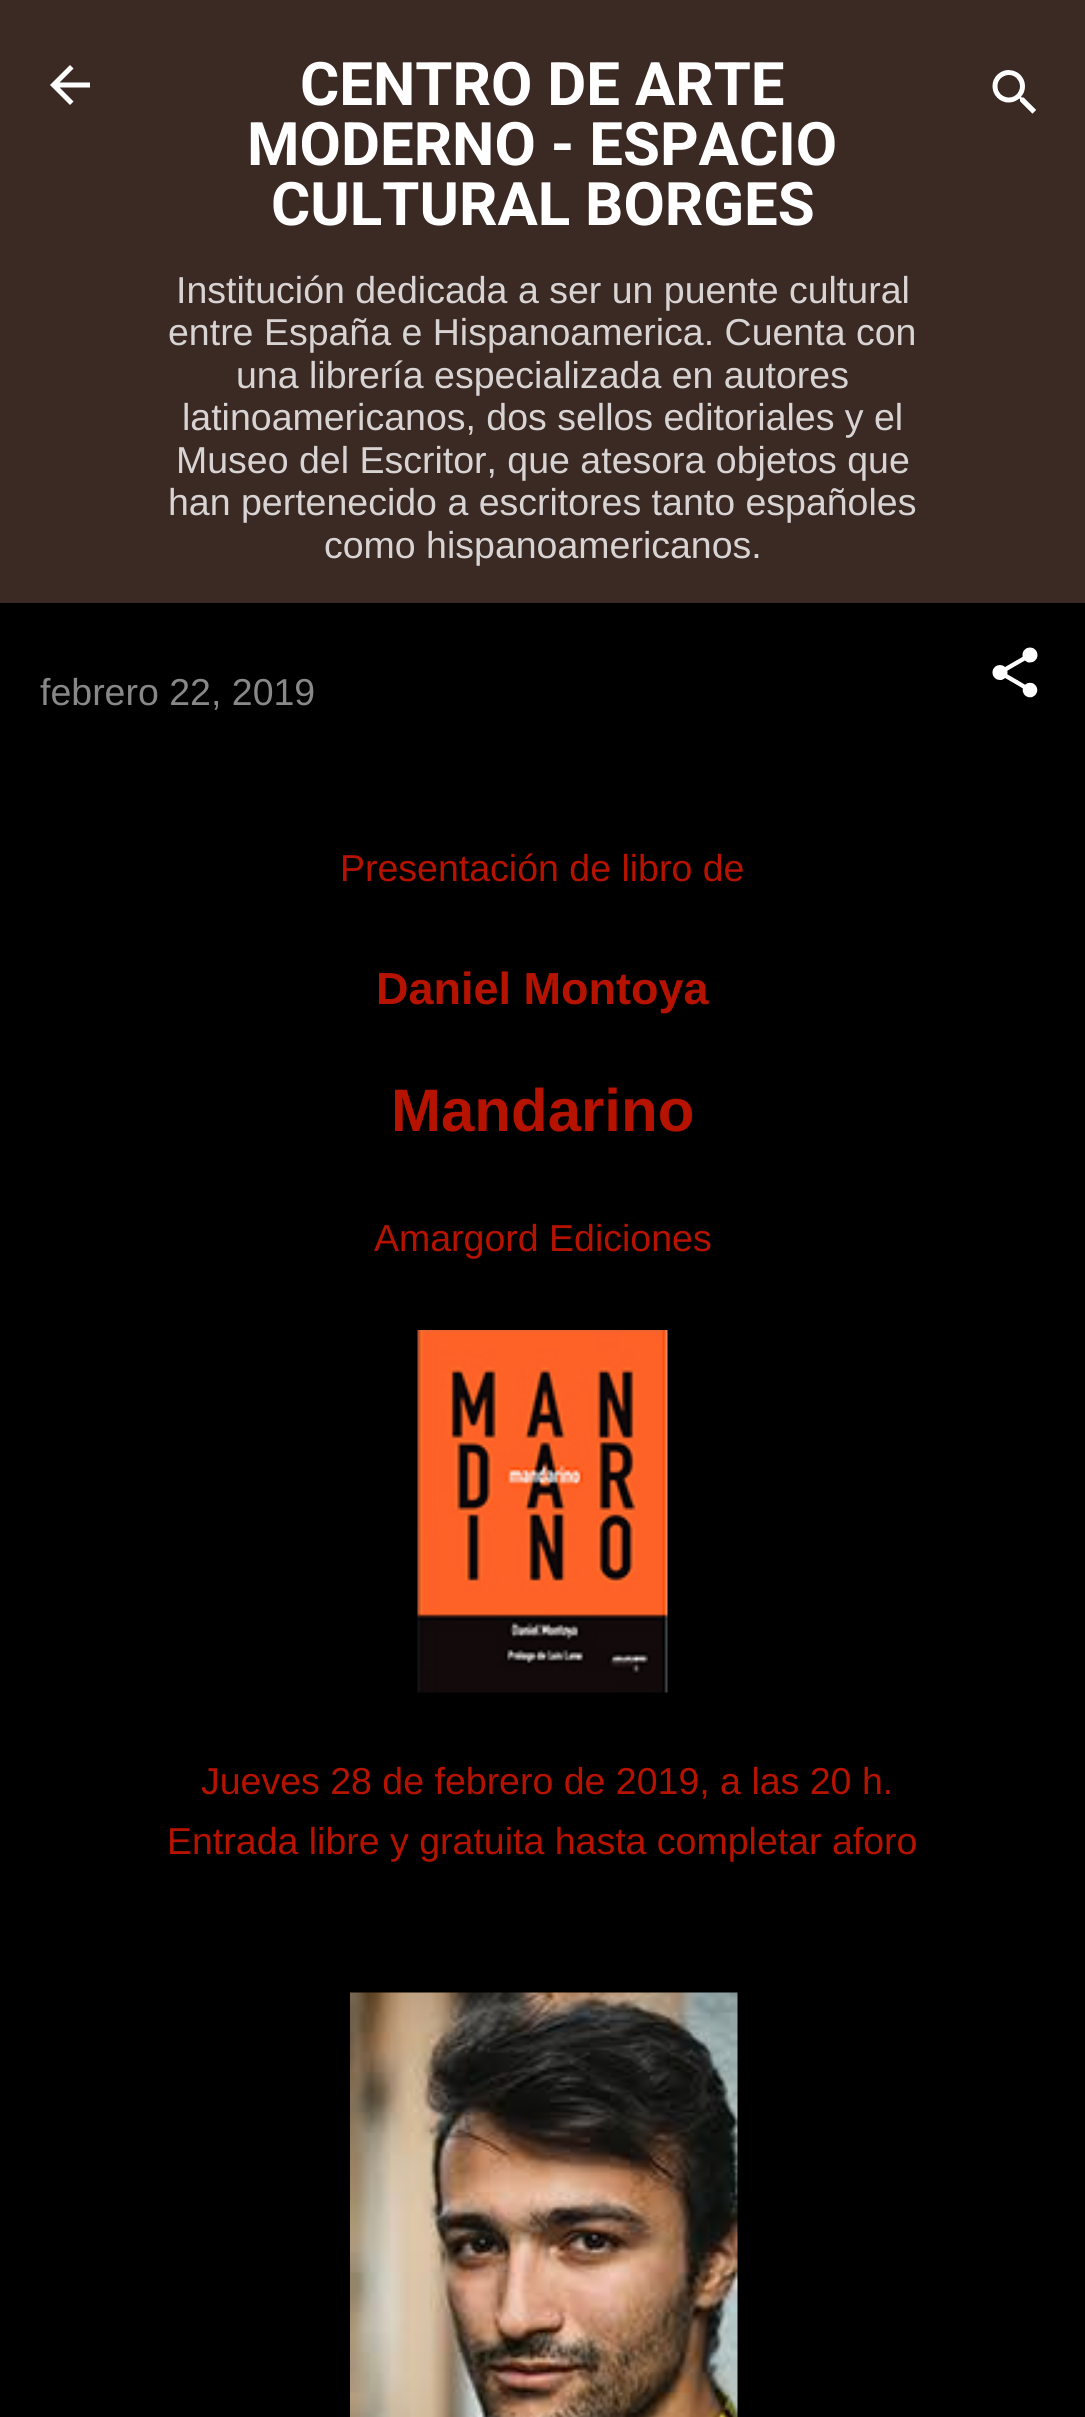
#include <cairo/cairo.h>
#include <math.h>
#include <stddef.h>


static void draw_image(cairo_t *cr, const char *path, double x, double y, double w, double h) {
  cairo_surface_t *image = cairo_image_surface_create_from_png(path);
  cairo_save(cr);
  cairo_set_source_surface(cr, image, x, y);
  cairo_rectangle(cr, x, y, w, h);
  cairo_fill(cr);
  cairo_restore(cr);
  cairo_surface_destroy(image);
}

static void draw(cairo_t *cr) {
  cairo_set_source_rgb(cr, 59 / 255.0, 41 / 255.0, 36 / 255.0);
  cairo_paint(cr);
  draw_image(cr, "images/1.png", 50, 65, 40, 40);
  draw_image(cr, "images/2.png", 992, 70, 44, 44);
  cairo_set_source_rgb(cr, 0, 0, 0);
  cairo_rectangle(cr, 0, 603, 1085, 1814);
  cairo_fill(cr);
  draw_image(cr, "images/3.png", 992, 647, 46, 51);
  draw_image(cr, "images/4.png", 417, 1330, 251, 363);
  draw_image(cr, "images/5.png", 350, 1992, 388, 425);
  cairo_select_font_face(cr, "Roboto", CAIRO_FONT_SLANT_NORMAL, CAIRO_FONT_WEIGHT_BOLD);
  cairo_set_font_size(cr, 60);
  cairo_set_source_rgb(cr, 1, 1, 1);
  cairo_move_to(cr, 300, 105);
  cairo_show_text(cr, "CENTRO DE ARTE");
  cairo_move_to(cr, 247, 165);
  cairo_show_text(cr, "MODERNO - ESPACIO");
  cairo_move_to(cr, 271, 225);
  cairo_show_text(cr, "CULTURAL BORGES");
  cairo_select_font_face(cr, "Liberation Sans", CAIRO_FONT_SLANT_NORMAL, CAIRO_FONT_WEIGHT_NORMAL);
  cairo_set_font_size(cr, 37.5);
  cairo_set_source_rgb(cr, 216 / 255.0, 212 / 255.0, 211 / 255.0);
  cairo_move_to(cr, 176, 303);
  cairo_show_text(cr, "Institución dedicada a ser un puente cultural");
  cairo_move_to(cr, 168, 345);
  cairo_show_text(cr, "entre España e Hispanoamerica. Cuenta con");
  cairo_move_to(cr, 236, 388);
  cairo_show_text(cr, "una librería especializada en autores");
  cairo_move_to(cr, 182, 430);
  cairo_show_text(cr, "latinoamericanos, dos sellos editoriales y el");
  cairo_move_to(cr, 176, 473);
  cairo_show_text(cr, "Museo del Escritor, que atesora objetos que");
  cairo_move_to(cr, 168, 515);
  cairo_show_text(cr, "han pertenecido a escritores tanto españoles");
  cairo_move_to(cr, 324, 558);
  cairo_show_text(cr, "como hispanoamericanos.");
  cairo_set_source_rgb(cr, 136 / 255.0, 136 / 255.0, 136 / 255.0);
  cairo_move_to(cr, 40, 705);
  cairo_show_text(cr, "febrero 22, 2019");
  cairo_set_source_rgb(cr, 181 / 255.0, 18 / 255.0, 0);
  cairo_move_to(cr, 340, 881);
  cairo_show_text(cr, "Presentación de libro de");
  cairo_select_font_face(cr, "Liberation Sans", CAIRO_FONT_SLANT_NORMAL, CAIRO_FONT_WEIGHT_BOLD);
  cairo_set_font_size(cr, 45);
  cairo_move_to(cr, 376, 1004);
  cairo_show_text(cr, "Daniel Montoya");
  cairo_set_font_size(cr, 60);
  cairo_move_to(cr, 391, 1131);
  cairo_show_text(cr, "Mandarino");
  cairo_select_font_face(cr, "Liberation Sans", CAIRO_FONT_SLANT_NORMAL, CAIRO_FONT_WEIGHT_NORMAL);
  cairo_set_font_size(cr, 37.5);
  cairo_move_to(cr, 374, 1251);
  cairo_show_text(cr, "Amargord Ediciones");
  cairo_move_to(cr, 201, 1794);
  cairo_show_text(cr, "Jueves 28 de febrero de 2019, a las 20 h.");
  cairo_move_to(cr, 167, 1854);
  cairo_show_text(cr, "Entrada libre y gratuita hasta completar aforo");
}

int main(void) {
  cairo_surface_t *surface = cairo_image_surface_create(CAIRO_FORMAT_RGB24, 1085, 2417);
  cairo_t *cr = cairo_create(surface);
  cairo_font_options_t *options = cairo_font_options_create();
  cairo_font_options_set_hint_metrics(options, CAIRO_HINT_METRICS_OFF);
  cairo_font_options_set_hint_style(options, CAIRO_HINT_STYLE_NONE);
  cairo_set_font_options(cr, options);
  cairo_set_miter_limit(cr, 4);
  draw(cr);
  cairo_surface_write_to_png(surface, "out.png");
  cairo_font_options_destroy(options);
  cairo_destroy(cr);
  cairo_surface_destroy(surface);
  return 0;
}
